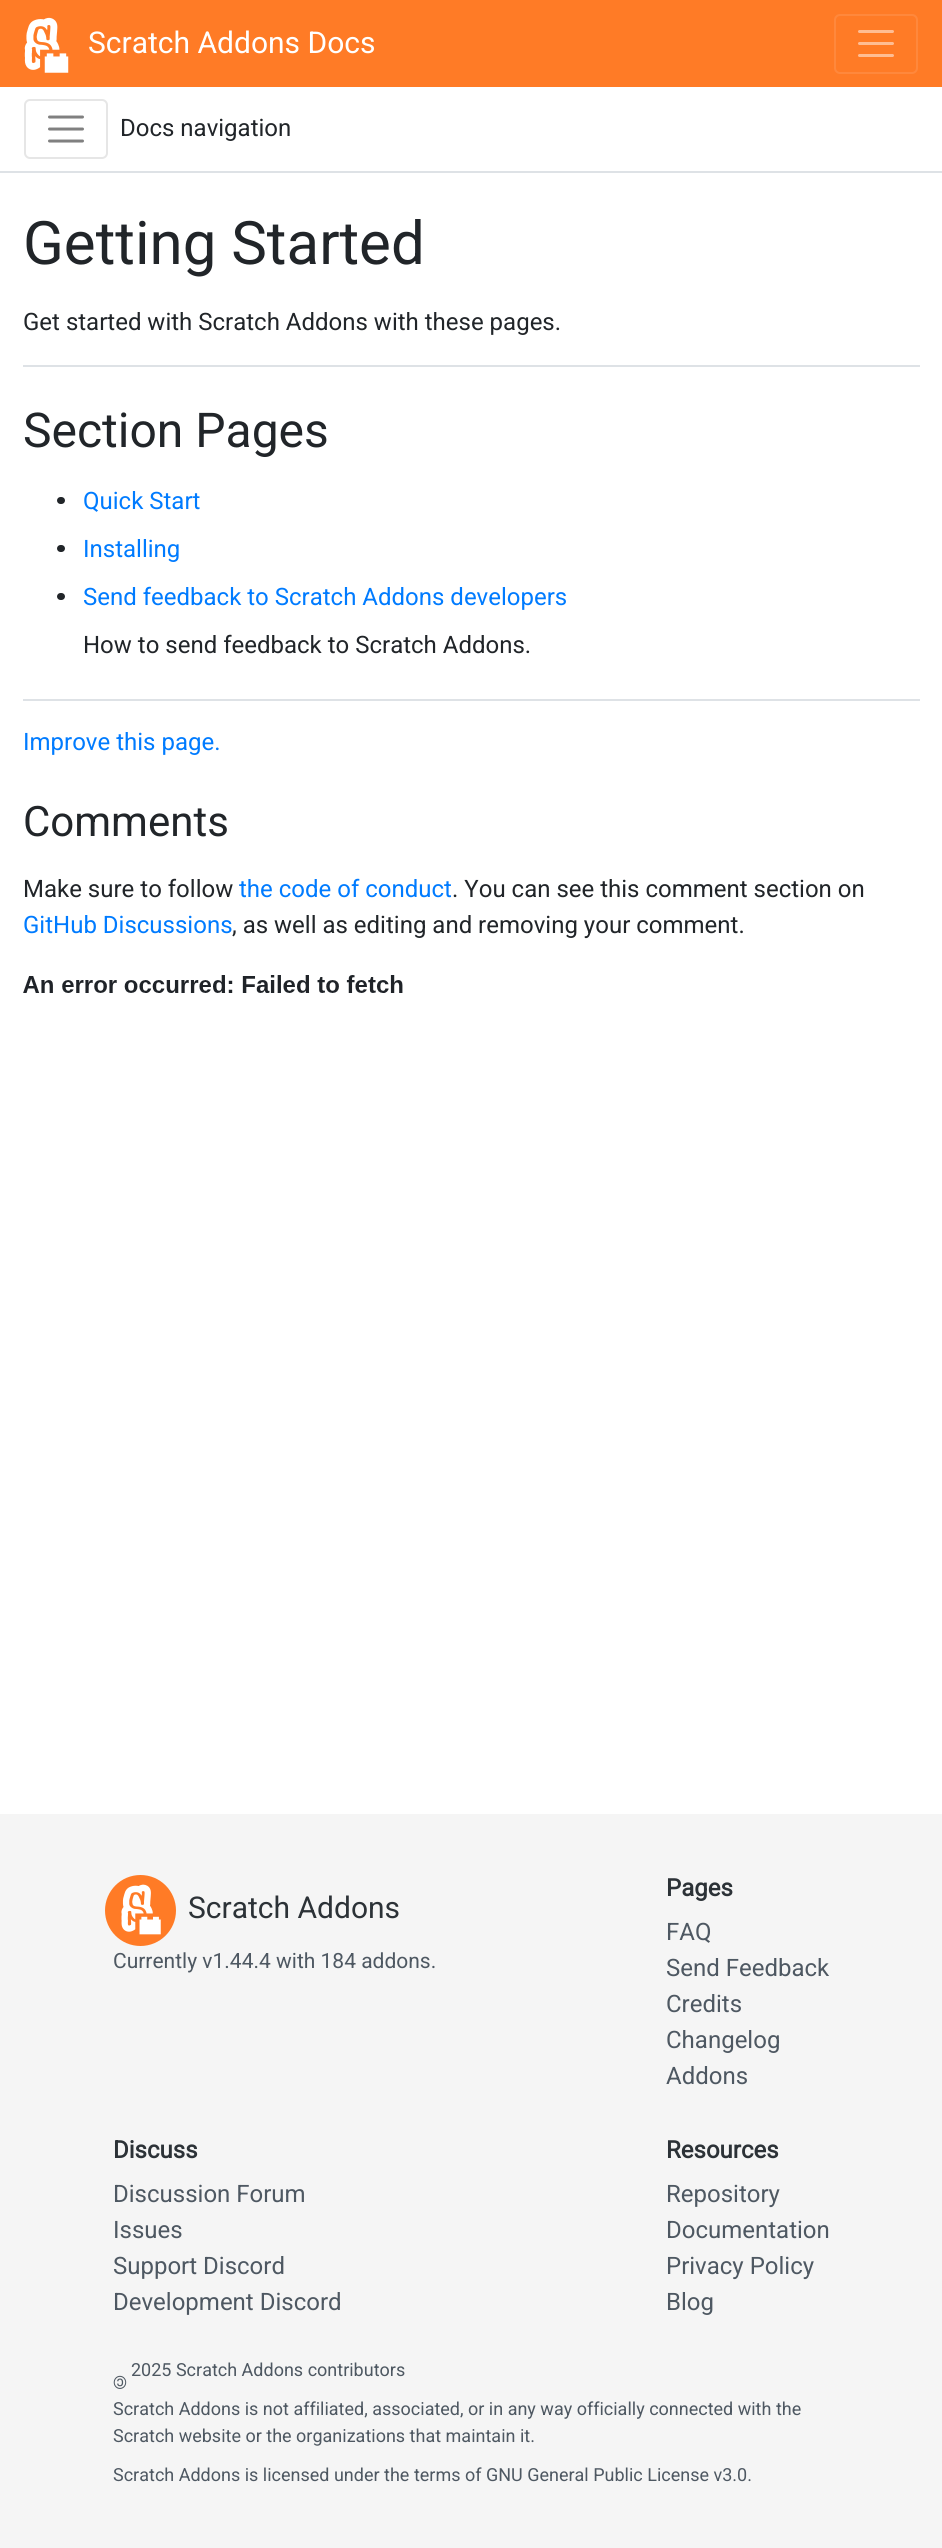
#include <cairo/cairo.h>
#include <math.h>
#include <stddef.h>


static void rounded_rect(cairo_t *cr, double x, double y, double w, double h, double r) {
  cairo_new_sub_path(cr);
  cairo_arc(cr, x + w - r, y + h - r, r, 0, M_PI / 2);
  cairo_arc(cr, x + r, y + h - r, r, M_PI / 2, M_PI);
  cairo_arc(cr, x + r, y + r, r, M_PI, 1.5 * M_PI);
  cairo_arc(cr, x + w - r, y + r, r, 1.5 * M_PI, 2 * M_PI);
  cairo_close_path(cr);
}

static void draw_image(cairo_t *cr, const char *path, double x, double y, double w, double h) {
  cairo_surface_t *image = cairo_image_surface_create_from_png(path);
  cairo_save(cr);
  cairo_set_source_surface(cr, image, x, y);
  cairo_rectangle(cr, x, y, w, h);
  cairo_fill(cr);
  cairo_restore(cr);
  cairo_surface_destroy(image);
}

static void draw(cairo_t *cr) {
  cairo_set_source_rgb(cr, 1, 1, 1);
  cairo_paint(cr);
  cairo_set_source_rgb(cr, 1, 123 / 255.0, 38 / 255.0);
  cairo_rectangle(cr, 0, 0, 942, 87);
  cairo_fill(cr);
  draw_image(cr, "images/1.png", 24, 17, 45, 56);
  rounded_rect(cr, 835, 15, 82, 58, 5);
  cairo_set_source_rgb(cr, 1, 136 / 255.0, 60 / 255.0);
  cairo_stroke(cr);
  cairo_new_path(cr);
  cairo_move_to(cr, 859.5, 31.5);
  cairo_line_to(cr, 892.5, 31.5);
  cairo_move_to(cr, 859.5, 43.5);
  cairo_line_to(cr, 892.5, 43.5);
  cairo_move_to(cr, 859.5, 55.5);
  cairo_line_to(cr, 892.5, 55.5);
  cairo_set_source_rgb(cr, 1, 189 / 255.0, 147 / 255.0);
  cairo_set_line_width(cr, 3);
  cairo_set_line_cap(cr, CAIRO_LINE_CAP_ROUND);
  cairo_stroke(cr);
  cairo_set_source_rgb(cr, 222 / 255.0, 226 / 255.0, 230 / 255.0);
  cairo_rectangle(cr, 0, 171, 942, 2);
  cairo_fill(cr);
  rounded_rect(cr, 25, 100, 82, 58, 5);
  cairo_set_source_rgb(cr, 230 / 255.0, 230 / 255.0, 230 / 255.0);
  cairo_set_line_width(cr, 2);
  cairo_set_line_cap(cr, CAIRO_LINE_CAP_BUTT);
  cairo_stroke(cr);
  cairo_new_path(cr);
  cairo_move_to(cr, 49.5, 117);
  cairo_line_to(cr, 82.5, 117);
  cairo_move_to(cr, 49.5, 129);
  cairo_line_to(cr, 82.5, 129);
  cairo_move_to(cr, 49.5, 141);
  cairo_line_to(cr, 82.5, 141);
  cairo_set_source_rgb(cr, 128 / 255.0, 128 / 255.0, 128 / 255.0);
  cairo_set_line_width(cr, 3);
  cairo_set_line_cap(cr, CAIRO_LINE_CAP_ROUND);
  cairo_stroke(cr);
  cairo_set_source_rgb(cr, 222 / 255.0, 226 / 255.0, 230 / 255.0);
  cairo_rectangle(cr, 23, 365, 897, 2);
  cairo_fill(cr);
  cairo_set_source_rgb(cr, 33 / 255.0, 37 / 255.0, 41 / 255.0);
  rounded_rect(cr, 57, 497, 8, 7, 3.5);
  cairo_fill(cr);
  rounded_rect(cr, 57, 545, 8, 7, 3.5);
  cairo_fill(cr);
  rounded_rect(cr, 57, 593, 8, 7, 3.5);
  cairo_fill(cr);
  cairo_set_source_rgb(cr, 222 / 255.0, 226 / 255.0, 230 / 255.0);
  cairo_rectangle(cr, 23, 699, 897, 2);
  cairo_fill(cr);
  draw_image(cr, "images/2.png", 23, 975, 380, 18);
  cairo_set_source_rgb(cr, 245 / 255.0, 245 / 255.0, 245 / 255.0);
  cairo_rectangle(cr, 0, 1814, 942, 734);
  cairo_fill(cr);
  cairo_set_source_rgb(cr, 1, 123 / 255.0, 38 / 255.0);
  cairo_arc(cr, 140.5, 1910.5, 35.5, 0, 2 * M_PI);
  cairo_fill(cr);
  draw_image(cr, "images/3.png", 121, 1884, 40, 51);
  cairo_select_font_face(cr, "Roboto", CAIRO_FONT_SLANT_NORMAL, CAIRO_FONT_WEIGHT_NORMAL);
  cairo_set_font_size(cr, 30);
  cairo_set_source_rgb(cr, 1, 1, 1);
  cairo_move_to(cr, 88, 53);
  cairo_show_text(cr, "Scratch Addons Docs");
  cairo_set_font_size(cr, 24);
  cairo_set_source_rgb(cr, 33 / 255.0, 37 / 255.0, 41 / 255.0);
  cairo_move_to(cr, 120, 136);
  cairo_show_text(cr, "Docs navigation");
  cairo_set_font_size(cr, 60);
  cairo_move_to(cr, 23, 264);
  cairo_show_text(cr, "Getting Started");
  cairo_set_font_size(cr, 24);
  cairo_move_to(cr, 23, 330);
  cairo_show_text(cr, "Get started with Scratch Addons with these pages.");
  cairo_set_font_size(cr, 48);
  cairo_move_to(cr, 23, 447);
  cairo_show_text(cr, "Section Pages");
  cairo_set_font_size(cr, 24);
  cairo_set_source_rgb(cr, 0, 123 / 255.0, 1);
  cairo_move_to(cr, 83, 509);
  cairo_show_text(cr, "Quick Start");
  cairo_move_to(cr, 83, 557);
  cairo_show_text(cr, "Installing");
  cairo_move_to(cr, 83, 605);
  cairo_show_text(cr, "Send feedback to Scratch Addons developers");
  cairo_set_source_rgb(cr, 33 / 255.0, 37 / 255.0, 41 / 255.0);
  cairo_move_to(cr, 83, 653);
  cairo_show_text(cr, "How to send feedback to Scratch Addons.");
  cairo_set_source_rgb(cr, 0, 123 / 255.0, 1);
  cairo_move_to(cr, 23, 750);
  cairo_show_text(cr, "Improve this page.");
  cairo_set_font_size(cr, 42);
  cairo_set_source_rgb(cr, 33 / 255.0, 37 / 255.0, 41 / 255.0);
  cairo_move_to(cr, 23, 836);
  cairo_show_text(cr, "Comments");
  cairo_set_font_size(cr, 24);
  cairo_move_to(cr, 23, 897);
  cairo_show_text(cr, "Make sure to follow");
  cairo_set_source_rgb(cr, 0, 123 / 255.0, 1);
  cairo_move_to(cr, 239, 897);
  cairo_show_text(cr, "the code of conduct");
  cairo_set_source_rgb(cr, 33 / 255.0, 37 / 255.0, 41 / 255.0);
  cairo_move_to(cr, 452, 897);
  cairo_show_text(cr, ". You can see this comment section on");
  cairo_set_source_rgb(cr, 0, 123 / 255.0, 1);
  cairo_move_to(cr, 23, 933);
  cairo_show_text(cr, "GitHub Discussions");
  cairo_set_source_rgb(cr, 33 / 255.0, 37 / 255.0, 41 / 255.0);
  cairo_move_to(cr, 232, 933);
  cairo_show_text(cr, ", as well as editing and removing your comment.");
  cairo_set_font_size(cr, 30);
  cairo_set_source_rgb(cr, 44 / 255.0, 50 / 255.0, 55 / 255.0);
  cairo_move_to(cr, 188, 1918);
  cairo_show_text(cr, "Scratch Addons");
  cairo_set_font_size(cr, 21);
  cairo_set_source_rgb(cr, 78 / 255.0, 88 / 255.0, 98 / 255.0);
  cairo_move_to(cr, 113, 1968);
  cairo_show_text(cr, "Currently v1.44.4 with 184 addons.");
  cairo_select_font_face(cr, "Roboto", CAIRO_FONT_SLANT_NORMAL, CAIRO_FONT_WEIGHT_BOLD);
  cairo_set_font_size(cr, 24);
  cairo_set_source_rgb(cr, 44 / 255.0, 50 / 255.0, 55 / 255.0);
  cairo_move_to(cr, 666, 1896);
  cairo_show_text(cr, "Pages");
  cairo_select_font_face(cr, "Roboto", CAIRO_FONT_SLANT_NORMAL, CAIRO_FONT_WEIGHT_NORMAL);
  cairo_set_source_rgb(cr, 78 / 255.0, 88 / 255.0, 98 / 255.0);
  cairo_move_to(cr, 666, 1940);
  cairo_show_text(cr, "FAQ");
  cairo_move_to(cr, 666, 1976);
  cairo_show_text(cr, "Send Feedback");
  cairo_move_to(cr, 666, 2012);
  cairo_show_text(cr, "Credits");
  cairo_move_to(cr, 666, 2048);
  cairo_show_text(cr, "Changelog");
  cairo_move_to(cr, 666, 2084);
  cairo_show_text(cr, "Addons");
  cairo_select_font_face(cr, "Roboto", CAIRO_FONT_SLANT_NORMAL, CAIRO_FONT_WEIGHT_BOLD);
  cairo_set_source_rgb(cr, 44 / 255.0, 50 / 255.0, 55 / 255.0);
  cairo_move_to(cr, 113, 2158);
  cairo_show_text(cr, "Discuss");
  cairo_select_font_face(cr, "Roboto", CAIRO_FONT_SLANT_NORMAL, CAIRO_FONT_WEIGHT_NORMAL);
  cairo_set_source_rgb(cr, 78 / 255.0, 88 / 255.0, 98 / 255.0);
  cairo_move_to(cr, 113, 2202);
  cairo_show_text(cr, "Discussion Forum");
  cairo_move_to(cr, 113, 2238);
  cairo_show_text(cr, "Issues");
  cairo_move_to(cr, 113, 2274);
  cairo_show_text(cr, "Support Discord");
  cairo_move_to(cr, 113, 2310);
  cairo_show_text(cr, "Development Discord");
  cairo_select_font_face(cr, "Roboto", CAIRO_FONT_SLANT_NORMAL, CAIRO_FONT_WEIGHT_BOLD);
  cairo_set_source_rgb(cr, 44 / 255.0, 50 / 255.0, 55 / 255.0);
  cairo_move_to(cr, 666, 2158);
  cairo_show_text(cr, "Resources");
  cairo_select_font_face(cr, "Roboto", CAIRO_FONT_SLANT_NORMAL, CAIRO_FONT_WEIGHT_NORMAL);
  cairo_set_source_rgb(cr, 78 / 255.0, 88 / 255.0, 98 / 255.0);
  cairo_move_to(cr, 666, 2202);
  cairo_show_text(cr, "Repository");
  cairo_move_to(cr, 666, 2238);
  cairo_show_text(cr, "Documentation");
  cairo_move_to(cr, 666, 2274);
  cairo_show_text(cr, "Privacy Policy");
  cairo_move_to(cr, 666, 2310);
  cairo_show_text(cr, "Blog");
  cairo_set_font_size(cr, 18);
  cairo_move_to(cr, 131, 2376);
  cairo_show_text(cr, "2025 Scratch Addons contributors");
  cairo_save(cr);
  cairo_translate(cr, 127, 2376);
  cairo_rotate(cr, 180 * M_PI / 180);
  cairo_move_to(cr, 0, 0);
  cairo_show_text(cr, "©");
  cairo_restore(cr);
  cairo_move_to(cr, 113, 2415);
  cairo_show_text(cr, "Scratch Addons is not affiliated, associated, or in any way officially connected with the");
  cairo_move_to(cr, 113, 2442);
  cairo_show_text(cr, "Scratch website or the organizations that maintain it.");
  cairo_move_to(cr, 113, 2481);
  cairo_show_text(cr, "Scratch Addons is licensed under the terms of GNU General Public License v3.0.");
}

int main(void) {
  cairo_surface_t *surface = cairo_image_surface_create(CAIRO_FORMAT_RGB24, 942, 2548);
  cairo_t *cr = cairo_create(surface);
  cairo_font_options_t *options = cairo_font_options_create();
  cairo_font_options_set_hint_metrics(options, CAIRO_HINT_METRICS_OFF);
  cairo_font_options_set_hint_style(options, CAIRO_HINT_STYLE_NONE);
  cairo_set_font_options(cr, options);
  cairo_set_miter_limit(cr, 4);
  draw(cr);
  cairo_surface_write_to_png(surface, "out.png");
  cairo_font_options_destroy(options);
  cairo_destroy(cr);
  cairo_surface_destroy(surface);
  return 0;
}
